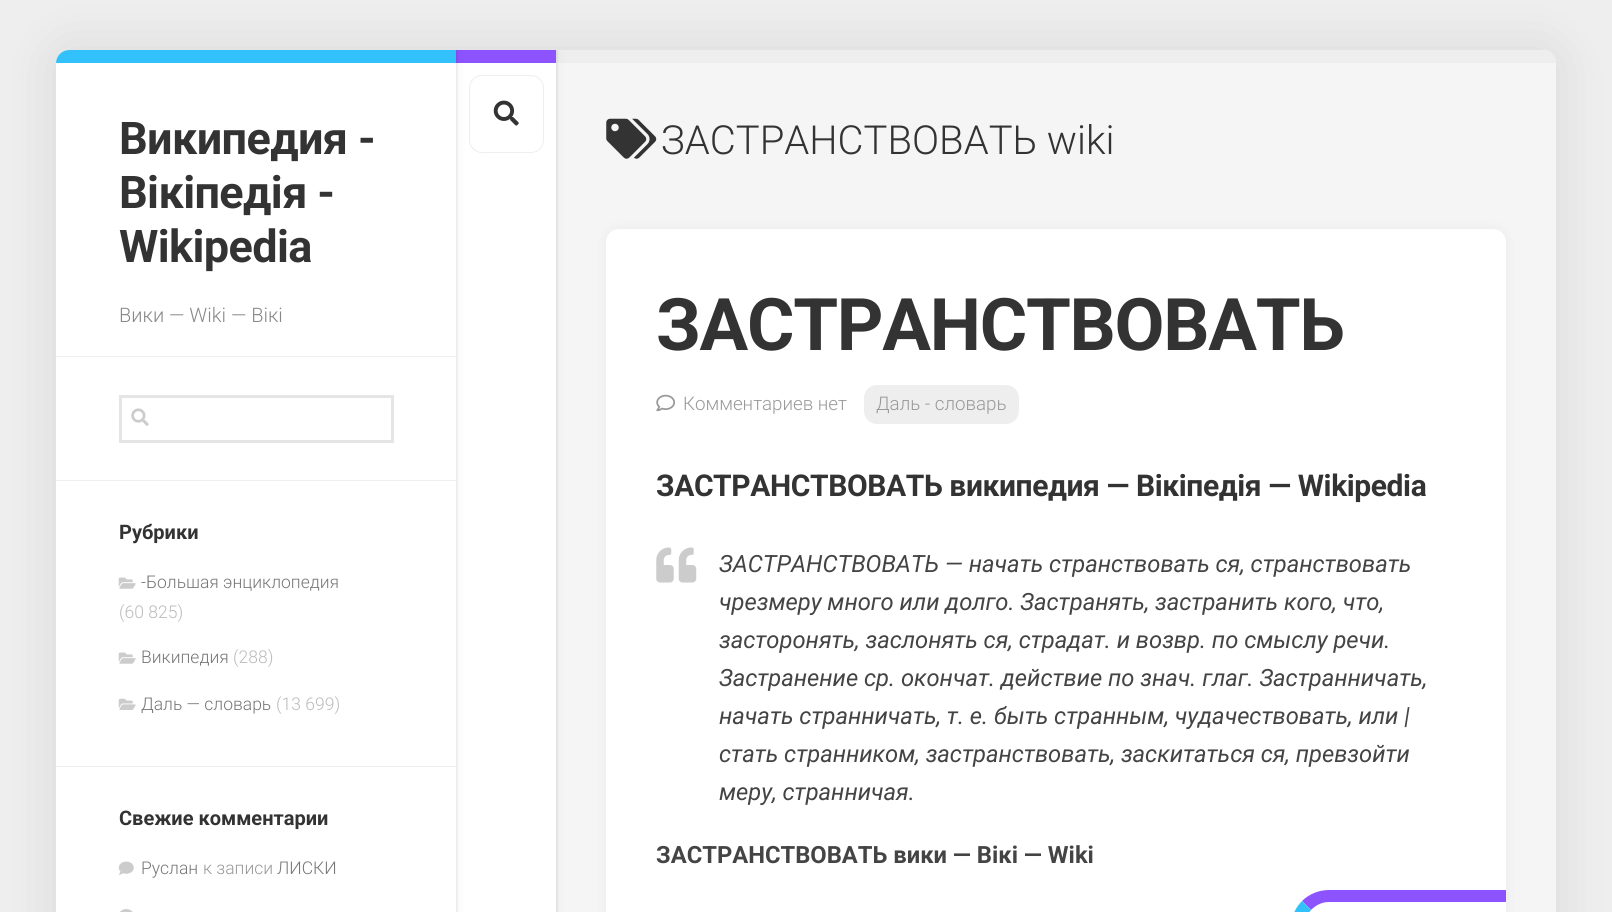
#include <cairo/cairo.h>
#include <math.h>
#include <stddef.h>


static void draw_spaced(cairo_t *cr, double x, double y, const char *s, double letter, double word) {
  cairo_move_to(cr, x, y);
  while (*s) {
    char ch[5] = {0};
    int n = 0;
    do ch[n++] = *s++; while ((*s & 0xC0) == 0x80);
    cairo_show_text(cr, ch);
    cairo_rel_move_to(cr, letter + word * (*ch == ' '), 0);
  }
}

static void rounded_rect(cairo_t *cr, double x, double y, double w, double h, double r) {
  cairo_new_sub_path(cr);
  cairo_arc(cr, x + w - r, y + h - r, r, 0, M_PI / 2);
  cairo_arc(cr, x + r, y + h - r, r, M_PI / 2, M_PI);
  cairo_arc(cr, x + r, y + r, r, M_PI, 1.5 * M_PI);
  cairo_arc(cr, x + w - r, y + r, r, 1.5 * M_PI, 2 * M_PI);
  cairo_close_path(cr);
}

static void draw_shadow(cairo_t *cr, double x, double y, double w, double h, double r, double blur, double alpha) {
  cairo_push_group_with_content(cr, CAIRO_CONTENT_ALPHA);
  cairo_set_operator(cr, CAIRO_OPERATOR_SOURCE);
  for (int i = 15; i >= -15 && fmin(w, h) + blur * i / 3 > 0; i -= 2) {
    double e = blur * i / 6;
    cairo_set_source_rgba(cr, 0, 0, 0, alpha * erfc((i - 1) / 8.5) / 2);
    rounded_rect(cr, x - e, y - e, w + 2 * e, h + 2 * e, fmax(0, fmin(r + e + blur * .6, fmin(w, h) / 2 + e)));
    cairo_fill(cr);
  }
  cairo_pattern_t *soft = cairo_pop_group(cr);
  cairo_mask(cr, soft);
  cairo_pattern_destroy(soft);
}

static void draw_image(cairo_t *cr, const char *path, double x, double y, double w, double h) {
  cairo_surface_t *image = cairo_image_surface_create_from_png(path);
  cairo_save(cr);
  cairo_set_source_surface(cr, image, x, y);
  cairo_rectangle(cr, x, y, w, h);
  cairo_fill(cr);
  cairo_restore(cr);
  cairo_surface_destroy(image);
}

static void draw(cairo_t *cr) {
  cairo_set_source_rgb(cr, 238 / 255.0, 238 / 255.0, 238 / 255.0);
  cairo_paint(cr);
  cairo_set_source_rgb(cr, 0, 0, 0);
  draw_shadow(cr, 56, 50, 1500, 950, 13, 25, 0.1);
  cairo_set_source_rgb(cr, 245 / 255.0, 245 / 255.0, 245 / 255.0);
  rounded_rect(cr, 56, 50, 1500, 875, 13);
  cairo_fill(cr);
  cairo_set_source_rgb(cr, 233 / 255.0, 233 / 255.0, 233 / 255.0);
  cairo_rectangle(cr, 556, 63, 2, 849);
  cairo_fill(cr);
  cairo_set_source_rgb(cr, 238 / 255.0, 238 / 255.0, 238 / 255.0);
  cairo_new_path(cr);
  cairo_move_to(cr, 556, 50);
  cairo_line_to(cr, 1543, 50);
  cairo_curve_to(cr, 1550, 50, 1556, 56, 1556, 63);
  cairo_line_to(cr, 556, 63);
  cairo_close_path(cr);
  cairo_fill(cr);
  cairo_set_source_rgb(cr, 226 / 255.0, 226 / 255.0, 226 / 255.0);
  cairo_rectangle(cr, 556, 50, 2, 13);
  cairo_fill(cr);
  cairo_save(cr);
  rounded_rect(cr, 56, 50, 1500, 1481, 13);
  cairo_clip(cr);
  cairo_set_source_rgb(cr, 0, 0, 0);
  draw_shadow(cr, 456, 50, 100, 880, 0, 6, 0.05);
  cairo_restore(cr);
  cairo_set_source_rgb(cr, 1, 1, 1);
  cairo_rectangle(cr, 456, 63, 100, 849);
  cairo_fill(cr);
  cairo_set_source_rgb(cr, 140 / 255.0, 83 / 255.0, 1);
  cairo_rectangle(cr, 456, 50, 100, 13);
  cairo_fill(cr);
  cairo_set_source_rgba(cr, 0, 0, 0, 0.05);
  cairo_rectangle(cr, 456, 50, 2, 862);
  cairo_fill(cr);
  rounded_rect(cr, 469.5, 75.5, 74, 77, 12.5);
  cairo_set_source_rgb(cr, 238 / 255.0, 238 / 255.0, 238 / 255.0);
  cairo_set_line_width(cr, 1);
  cairo_stroke(cr);
  cairo_save(cr);
  rounded_rect(cr, 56, 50, 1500, 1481, 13);
  cairo_clip(cr);
  cairo_set_source_rgb(cr, 0, 0, 0);
  draw_shadow(cr, 56, 50, 400, 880, 0, 6, 0.05);
  cairo_restore(cr);
  cairo_set_source_rgb(cr, 1, 1, 1);
  cairo_new_path(cr);
  cairo_move_to(cr, 69, 50);
  cairo_line_to(cr, 456, 50);
  cairo_line_to(cr, 456, 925);
  cairo_line_to(cr, 69, 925);
  cairo_curve_to(cr, 62, 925, 56, 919, 56, 912);
  cairo_line_to(cr, 56, 63);
  cairo_curve_to(cr, 56, 56, 62, 50, 69, 50);
  cairo_close_path(cr);
  cairo_fill(cr);
  cairo_set_source_rgb(cr, 50 / 255.0, 193 / 255.0, 251 / 255.0);
  cairo_new_path(cr);
  cairo_move_to(cr, 69, 50);
  cairo_line_to(cr, 456, 50);
  cairo_line_to(cr, 456, 63);
  cairo_line_to(cr, 56, 63);
  cairo_curve_to(cr, 56, 56, 62, 50, 69, 50);
  cairo_close_path(cr);
  cairo_fill(cr);
  cairo_set_source_rgb(cr, 238 / 255.0, 238 / 255.0, 238 / 255.0);
  cairo_rectangle(cr, 56, 356, 400, 1);
  cairo_fill(cr);
  cairo_rectangle(cr, 120.5, 396.5, 272, 45);
  cairo_set_source_rgb(cr, 229 / 255.0, 229 / 255.0, 229 / 255.0);
  cairo_set_line_width(cr, 3);
  cairo_stroke(cr);
  draw_image(cr, "images/1.png", 131, 408, 18, 18);
  cairo_set_source_rgb(cr, 238 / 255.0, 238 / 255.0, 238 / 255.0);
  cairo_rectangle(cr, 56, 480, 400, 1);
  cairo_fill(cr);
  draw_image(cr, "images/2.png", 118, 577, 18, 12);
  draw_image(cr, "images/2.png", 118, 652, 18, 12);
  draw_image(cr, "images/3.png", 118, 698, 18, 12);
  cairo_rectangle(cr, 56, 766, 400, 1);
  cairo_fill(cr);
  draw_image(cr, "images/4.png", 118, 861, 16, 14);
  draw_image(cr, "images/5.png", 120, 909, 13, 3);
  draw_image(cr, "images/6.png", 493, 100, 26, 26);
  draw_image(cr, "images/7.png", 606, 118, 51, 41);
  cairo_set_source_rgb(cr, 0, 0, 0);
  draw_shadow(cr, 606, 229, 900, 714, 13, 6, 0.05);
  cairo_set_source_rgb(cr, 1, 1, 1);
  rounded_rect(cr, 606, 229, 900, 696, 13);
  cairo_fill(cr);
  draw_image(cr, "images/8.png", 656, 394, 19, 18);
  cairo_set_source_rgb(cr, 238 / 255.0, 238 / 255.0, 238 / 255.0);
  rounded_rect(cr, 864, 385, 155, 39, 13);
  cairo_fill(cr);
  draw_image(cr, "images/9.png", 656, 547, 41, 36);
  cairo_set_source_rgb(cr, 140 / 255.0, 83 / 255.0, 1);
  cairo_new_path(cr);
  cairo_move_to(cr, 1329, 890);
  cairo_line_to(cr, 1506, 890);
  cairo_line_to(cr, 1506, 902);
  cairo_line_to(cr, 1329, 902);
  cairo_curve_to(cr, 1322, 902, 1316, 905, 1311, 910);
  cairo_line_to(cr, 1302, 901);
  cairo_curve_to(cr, 1309, 894, 1319, 890, 1329, 890);
  cairo_close_path(cr);
  cairo_fill(cr);
  cairo_set_source_rgb(cr, 50 / 255.0, 193 / 255.0, 251 / 255.0);
  cairo_new_path(cr);
  cairo_move_to(cr, 1291, 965);
  cairo_line_to(cr, 1304, 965);
  cairo_line_to(cr, 1304, 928);
  cairo_curve_to(cr, 1304, 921, 1307, 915, 1311, 910);
  cairo_line_to(cr, 1302, 901);
  cairo_curve_to(cr, 1296, 907, 1292, 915, 1291, 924);
  cairo_close_path(cr);
  cairo_fill(cr);
  cairo_select_font_face(cr, "Roboto", CAIRO_FONT_SLANT_NORMAL, CAIRO_FONT_WEIGHT_BOLD);
  cairo_set_font_size(cr, 45);
  cairo_set_source_rgb(cr, 51 / 255.0, 51 / 255.0, 51 / 255.0);
  draw_spaced(cr, 119, 154, "Википедия -", -0.6, 0);
  draw_spaced(cr, 119, 208, "Вікіпедія -", -0.6, 0);
  draw_spaced(cr, 119, 262, "Wikipedia", -0.6, 0);
  cairo_select_font_face(cr, "Roboto Light", CAIRO_FONT_SLANT_NORMAL, CAIRO_FONT_WEIGHT_NORMAL);
  cairo_set_font_size(cr, 20);
  cairo_set_source_rgb(cr, 136 / 255.0, 136 / 255.0, 136 / 255.0);
  cairo_move_to(cr, 119, 322);
  cairo_show_text(cr, "Вики — Wiki — Вікі");
  cairo_select_font_face(cr, "Roboto", CAIRO_FONT_SLANT_NORMAL, CAIRO_FONT_WEIGHT_BOLD);
  cairo_set_source_rgb(cr, 51 / 255.0, 51 / 255.0, 51 / 255.0);
  cairo_move_to(cr, 119, 539);
  cairo_show_text(cr, "Рубрики");
  cairo_select_font_face(cr, "Roboto Light", CAIRO_FONT_SLANT_NORMAL, CAIRO_FONT_WEIGHT_NORMAL);
  cairo_set_font_size(cr, 17.5);
  cairo_set_source_rgb(cr, 119 / 255.0, 119 / 255.0, 119 / 255.0);
  cairo_move_to(cr, 141, 588);
  cairo_show_text(cr, "-Большая энциклопедия");
  cairo_set_source_rgb(cr, 187 / 255.0, 187 / 255.0, 187 / 255.0);
  cairo_move_to(cr, 119, 618);
  cairo_show_text(cr, "(60 825)");
  cairo_set_source_rgb(cr, 119 / 255.0, 119 / 255.0, 119 / 255.0);
  cairo_move_to(cr, 141, 663);
  cairo_show_text(cr, "Википедия");
  cairo_set_source_rgb(cr, 187 / 255.0, 187 / 255.0, 187 / 255.0);
  cairo_move_to(cr, 233, 663);
  cairo_show_text(cr, "(288)");
  cairo_set_source_rgb(cr, 119 / 255.0, 119 / 255.0, 119 / 255.0);
  cairo_move_to(cr, 141, 710);
  cairo_show_text(cr, "Даль — словарь");
  cairo_set_source_rgb(cr, 187 / 255.0, 187 / 255.0, 187 / 255.0);
  cairo_move_to(cr, 276, 710);
  cairo_show_text(cr, "(13 699)");
  cairo_select_font_face(cr, "Roboto", CAIRO_FONT_SLANT_NORMAL, CAIRO_FONT_WEIGHT_BOLD);
  cairo_set_font_size(cr, 20);
  cairo_set_source_rgb(cr, 51 / 255.0, 51 / 255.0, 51 / 255.0);
  cairo_move_to(cr, 119, 825);
  cairo_show_text(cr, "Свежие комментарии");
  cairo_select_font_face(cr, "Roboto Light", CAIRO_FONT_SLANT_NORMAL, CAIRO_FONT_WEIGHT_NORMAL);
  cairo_set_font_size(cr, 17.5);
  cairo_set_source_rgb(cr, 119 / 255.0, 119 / 255.0, 119 / 255.0);
  cairo_move_to(cr, 141, 874);
  cairo_show_text(cr, "Руслан");
  cairo_set_source_rgb(cr, 153 / 255.0, 153 / 255.0, 153 / 255.0);
  cairo_move_to(cr, 203, 874);
  cairo_show_text(cr, "к записи");
  cairo_set_source_rgb(cr, 119 / 255.0, 119 / 255.0, 119 / 255.0);
  cairo_move_to(cr, 277, 874);
  cairo_show_text(cr, "ЛИСКИ");
  cairo_set_font_size(cr, 40);
  cairo_set_source_rgb(cr, 51 / 255.0, 51 / 255.0, 51 / 255.0);
  cairo_move_to(cr, 661, 154);
  cairo_show_text(cr, "ЗАСТРАНСТВОВАТЬ wiki");
  cairo_select_font_face(cr, "Roboto", CAIRO_FONT_SLANT_NORMAL, CAIRO_FONT_WEIGHT_BOLD);
  cairo_set_font_size(cr, 72.5);
  draw_spaced(cr, 656, 350, "ЗАСТРАНСТВОВАТЬ", -1.25, 0);
  cairo_select_font_face(cr, "Roboto Light", CAIRO_FONT_SLANT_NORMAL, CAIRO_FONT_WEIGHT_NORMAL);
  cairo_set_font_size(cr, 18.75);
  cairo_set_source_rgb(cr, 153 / 255.0, 153 / 255.0, 153 / 255.0);
  cairo_move_to(cr, 683, 410);
  cairo_show_text(cr, "Комментариев нет");
  cairo_move_to(cr, 876, 410);
  cairo_show_text(cr, "Даль - словарь");
  cairo_select_font_face(cr, "Roboto", CAIRO_FONT_SLANT_NORMAL, CAIRO_FONT_WEIGHT_BOLD);
  cairo_set_font_size(cr, 30);
  cairo_set_source_rgb(cr, 51 / 255.0, 51 / 255.0, 51 / 255.0);
  draw_spaced(cr, 656, 496, "ЗАСТРАНСТВОВАТЬ википедия — Вікіпедія — Wikipedia", -0.4, 0);
  cairo_select_font_face(cr, "Roboto", CAIRO_FONT_SLANT_ITALIC, CAIRO_FONT_WEIGHT_NORMAL);
  cairo_set_font_size(cr, 23.75);
  cairo_set_source_rgb(cr, 68 / 255.0, 68 / 255.0, 68 / 255.0);
  cairo_move_to(cr, 719, 572);
  cairo_show_text(cr, "ЗАСТРАНСТВОВАТЬ — начать странствовать ся, странствовать");
  cairo_move_to(cr, 719, 610);
  cairo_show_text(cr, "чрезмеру много или долго. Застранять, застранить кого, что,");
  cairo_move_to(cr, 719, 648);
  cairo_show_text(cr, "засторонять, заслонять ся, страдат. и возвр. по смыслу речи.");
  cairo_move_to(cr, 719, 686);
  cairo_show_text(cr, "Застранение ср. окончат. действие по знач. глаг. Застранничать,");
  cairo_move_to(cr, 719, 724);
  cairo_show_text(cr, "начать странничать, т. е. быть странным, чудачествовать, или |");
  cairo_move_to(cr, 719, 762);
  cairo_show_text(cr, "стать странником, застранствовать, заскитаться ся, превзойти");
  cairo_move_to(cr, 719, 800);
  cairo_show_text(cr, "меру, странничая.");
  cairo_select_font_face(cr, "Roboto", CAIRO_FONT_SLANT_NORMAL, CAIRO_FONT_WEIGHT_BOLD);
  cairo_move_to(cr, 656, 863);
  cairo_show_text(cr, "ЗАСТРАНСТВОВАТЬ вики — Вікі — Wiki");
}

int main(void) {
  cairo_surface_t *surface = cairo_image_surface_create(CAIRO_FORMAT_RGB24, 1612, 912);
  cairo_t *cr = cairo_create(surface);
  cairo_font_options_t *options = cairo_font_options_create();
  cairo_font_options_set_hint_metrics(options, CAIRO_HINT_METRICS_OFF);
  cairo_font_options_set_hint_style(options, CAIRO_HINT_STYLE_NONE);
  cairo_set_font_options(cr, options);
  cairo_set_miter_limit(cr, 4);
  draw(cr);
  cairo_surface_write_to_png(surface, "out.png");
  cairo_font_options_destroy(options);
  cairo_destroy(cr);
  cairo_surface_destroy(surface);
  return 0;
}
